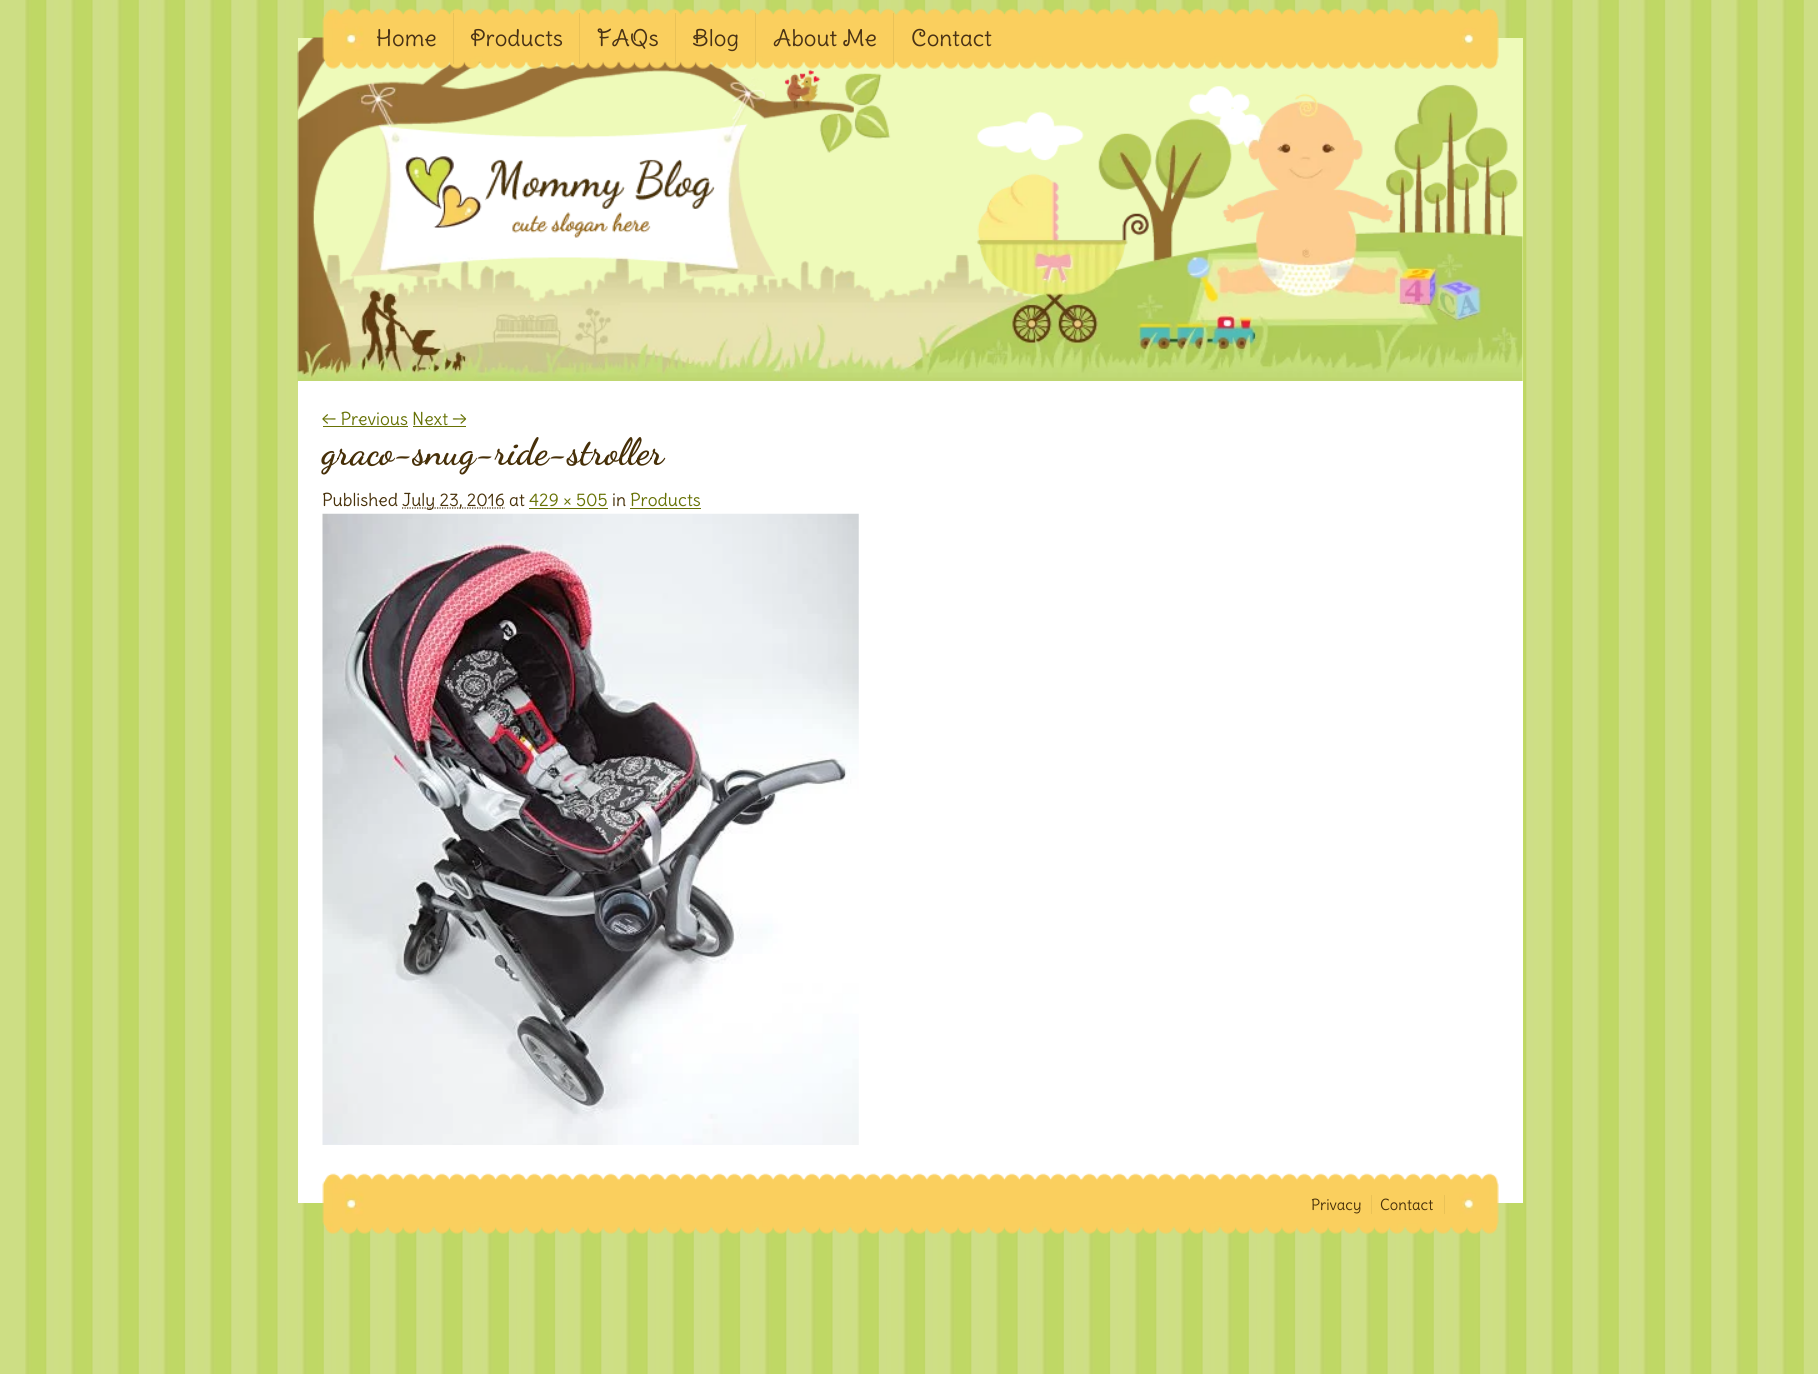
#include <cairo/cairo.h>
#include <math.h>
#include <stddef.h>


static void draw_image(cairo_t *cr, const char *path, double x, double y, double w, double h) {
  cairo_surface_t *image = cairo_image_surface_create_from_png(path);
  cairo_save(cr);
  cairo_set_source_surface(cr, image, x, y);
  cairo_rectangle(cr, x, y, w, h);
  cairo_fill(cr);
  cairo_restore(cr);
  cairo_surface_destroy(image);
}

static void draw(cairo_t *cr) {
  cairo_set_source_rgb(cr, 205 / 255.0, 222 / 255.0, 132 / 255.0);
  cairo_paint(cr);
  draw_image(cr, "images/1.png", 25, 0, 1779, 1374);
  cairo_set_source_rgb(cr, 238 / 255.0, 250 / 255.0, 185 / 255.0);
  cairo_rectangle(cr, 298, 38, 1225, 343);
  cairo_fill(cr);
  draw_image(cr, "images/3.png", 297, 37, 1226, 345);
  draw_image(cr, "images/2.png", 322, 8, 1177, 61);
  cairo_set_source_rgb(cr, 234 / 255.0, 194 / 255.0, 87 / 255.0);
  cairo_rectangle(cr, 453, 13, 1, 51);
  cairo_fill(cr);
  cairo_rectangle(cr, 579, 13, 1, 51);
  cairo_fill(cr);
  cairo_rectangle(cr, 675, 13, 1, 51);
  cairo_fill(cr);
  cairo_rectangle(cr, 755, 13, 1, 51);
  cairo_fill(cr);
  cairo_rectangle(cr, 893, 13, 1, 51);
  cairo_fill(cr);
  draw_image(cr, "images/4.png", 405, 156, 310, 82);
  cairo_set_source_rgb(cr, 1, 1, 1);
  cairo_rectangle(cr, 298, 381, 1225, 822);
  cairo_fill(cr);
  cairo_set_source_rgb(cr, 103 / 255.0, 114 / 255.0, 5 / 255.0);
  cairo_rectangle(cr, 323, 426, 85, 1);
  cairo_fill(cr);
  cairo_rectangle(cr, 413, 426, 53, 1);
  cairo_fill(cr);
  cairo_new_path(cr);
  cairo_move_to(cr, 402, 508);
  cairo_line_to(cr, 505, 508);
  cairo_set_source_rgb(cr, 71 / 255.0, 48 / 255.0, 9 / 255.0);
  cairo_set_line_width(cr, 1.2);
  cairo_set_dash(cr, (double[]){1.25, 1.25}, 2, 0);
  cairo_stroke(cr);
  cairo_set_source_rgb(cr, 103 / 255.0, 114 / 255.0, 5 / 255.0);
  cairo_rectangle(cr, 529, 508, 79, 1);
  cairo_fill(cr);
  cairo_rectangle(cr, 630, 508, 71, 1);
  cairo_fill(cr);
  draw_image(cr, "images/5.png", 322, 513, 537, 632);
  draw_image(cr, "images/6.png", 322, 1173, 1177, 61);
  cairo_set_source_rgb(cr, 234 / 255.0, 194 / 255.0, 87 / 255.0);
  cairo_rectangle(cr, 1371, 1195, 1, 19);
  cairo_fill(cr);
  cairo_rectangle(cr, 1444, 1195, 1, 19);
  cairo_fill(cr);
  cairo_select_font_face(cr, "Delius Swash Caps", CAIRO_FONT_SLANT_NORMAL, CAIRO_FONT_WEIGHT_NORMAL);
  cairo_set_font_size(cr, 22.5);
  cairo_set_source_rgb(cr, 73 / 255.0, 50 / 255.0, 21 / 255.0);
  cairo_move_to(cr, 376, 46);
  cairo_show_text(cr, "Home");
  cairo_move_to(cr, 470, 46);
  cairo_show_text(cr, "Products");
  cairo_move_to(cr, 597, 46);
  cairo_show_text(cr, "FAQs");
  cairo_move_to(cr, 692, 46);
  cairo_show_text(cr, "Blog");
  cairo_move_to(cr, 773, 46);
  cairo_show_text(cr, "About Me");
  cairo_move_to(cr, 911, 46);
  cairo_show_text(cr, "Contact");
  cairo_select_font_face(cr, "Delius", CAIRO_FONT_SLANT_NORMAL, CAIRO_FONT_WEIGHT_NORMAL);
  cairo_set_font_size(cr, 17.5);
  cairo_set_source_rgb(cr, 103 / 255.0, 114 / 255.0, 5 / 255.0);
  cairo_move_to(cr, 322, 425);
  cairo_show_text(cr, "← Previous Next →");
  cairo_select_font_face(cr, "Dancing Script", CAIRO_FONT_SLANT_NORMAL, CAIRO_FONT_WEIGHT_BOLD);
  cairo_set_font_size(cr, 37.5);
  cairo_set_source_rgb(cr, 71 / 255.0, 48 / 255.0, 9 / 255.0);
  cairo_move_to(cr, 322, 464);
  cairo_show_text(cr, "graco-snug-ride-stroller");
  cairo_select_font_face(cr, "Delius", CAIRO_FONT_SLANT_NORMAL, CAIRO_FONT_WEIGHT_NORMAL);
  cairo_set_font_size(cr, 17.5);
  cairo_move_to(cr, 322, 506);
  cairo_show_text(cr, "Published");
  cairo_move_to(cr, 402, 506);
  cairo_show_text(cr, "July 23, 2016 at");
  cairo_set_source_rgb(cr, 103 / 255.0, 114 / 255.0, 5 / 255.0);
  cairo_move_to(cr, 529, 506);
  cairo_show_text(cr, "429 × 505");
  cairo_set_source_rgb(cr, 71 / 255.0, 48 / 255.0, 9 / 255.0);
  cairo_move_to(cr, 612, 506);
  cairo_show_text(cr, "in");
  cairo_set_source_rgb(cr, 103 / 255.0, 114 / 255.0, 5 / 255.0);
  cairo_move_to(cr, 630, 506);
  cairo_show_text(cr, "Products");
  cairo_set_font_size(cr, 15);
  cairo_set_source_rgb(cr, 71 / 255.0, 48 / 255.0, 9 / 255.0);
  cairo_move_to(cr, 1311, 1210);
  cairo_show_text(cr, "Privacy");
  cairo_move_to(cr, 1380, 1210);
  cairo_show_text(cr, "Contact");
}

int main(void) {
  cairo_surface_t *surface = cairo_image_surface_create(CAIRO_FORMAT_RGB24, 1818, 1374);
  cairo_t *cr = cairo_create(surface);
  cairo_font_options_t *options = cairo_font_options_create();
  cairo_font_options_set_hint_metrics(options, CAIRO_HINT_METRICS_OFF);
  cairo_font_options_set_hint_style(options, CAIRO_HINT_STYLE_NONE);
  cairo_set_font_options(cr, options);
  cairo_set_miter_limit(cr, 4);
  draw(cr);
  cairo_surface_write_to_png(surface, "out.png");
  cairo_font_options_destroy(options);
  cairo_destroy(cr);
  cairo_surface_destroy(surface);
  return 0;
}
